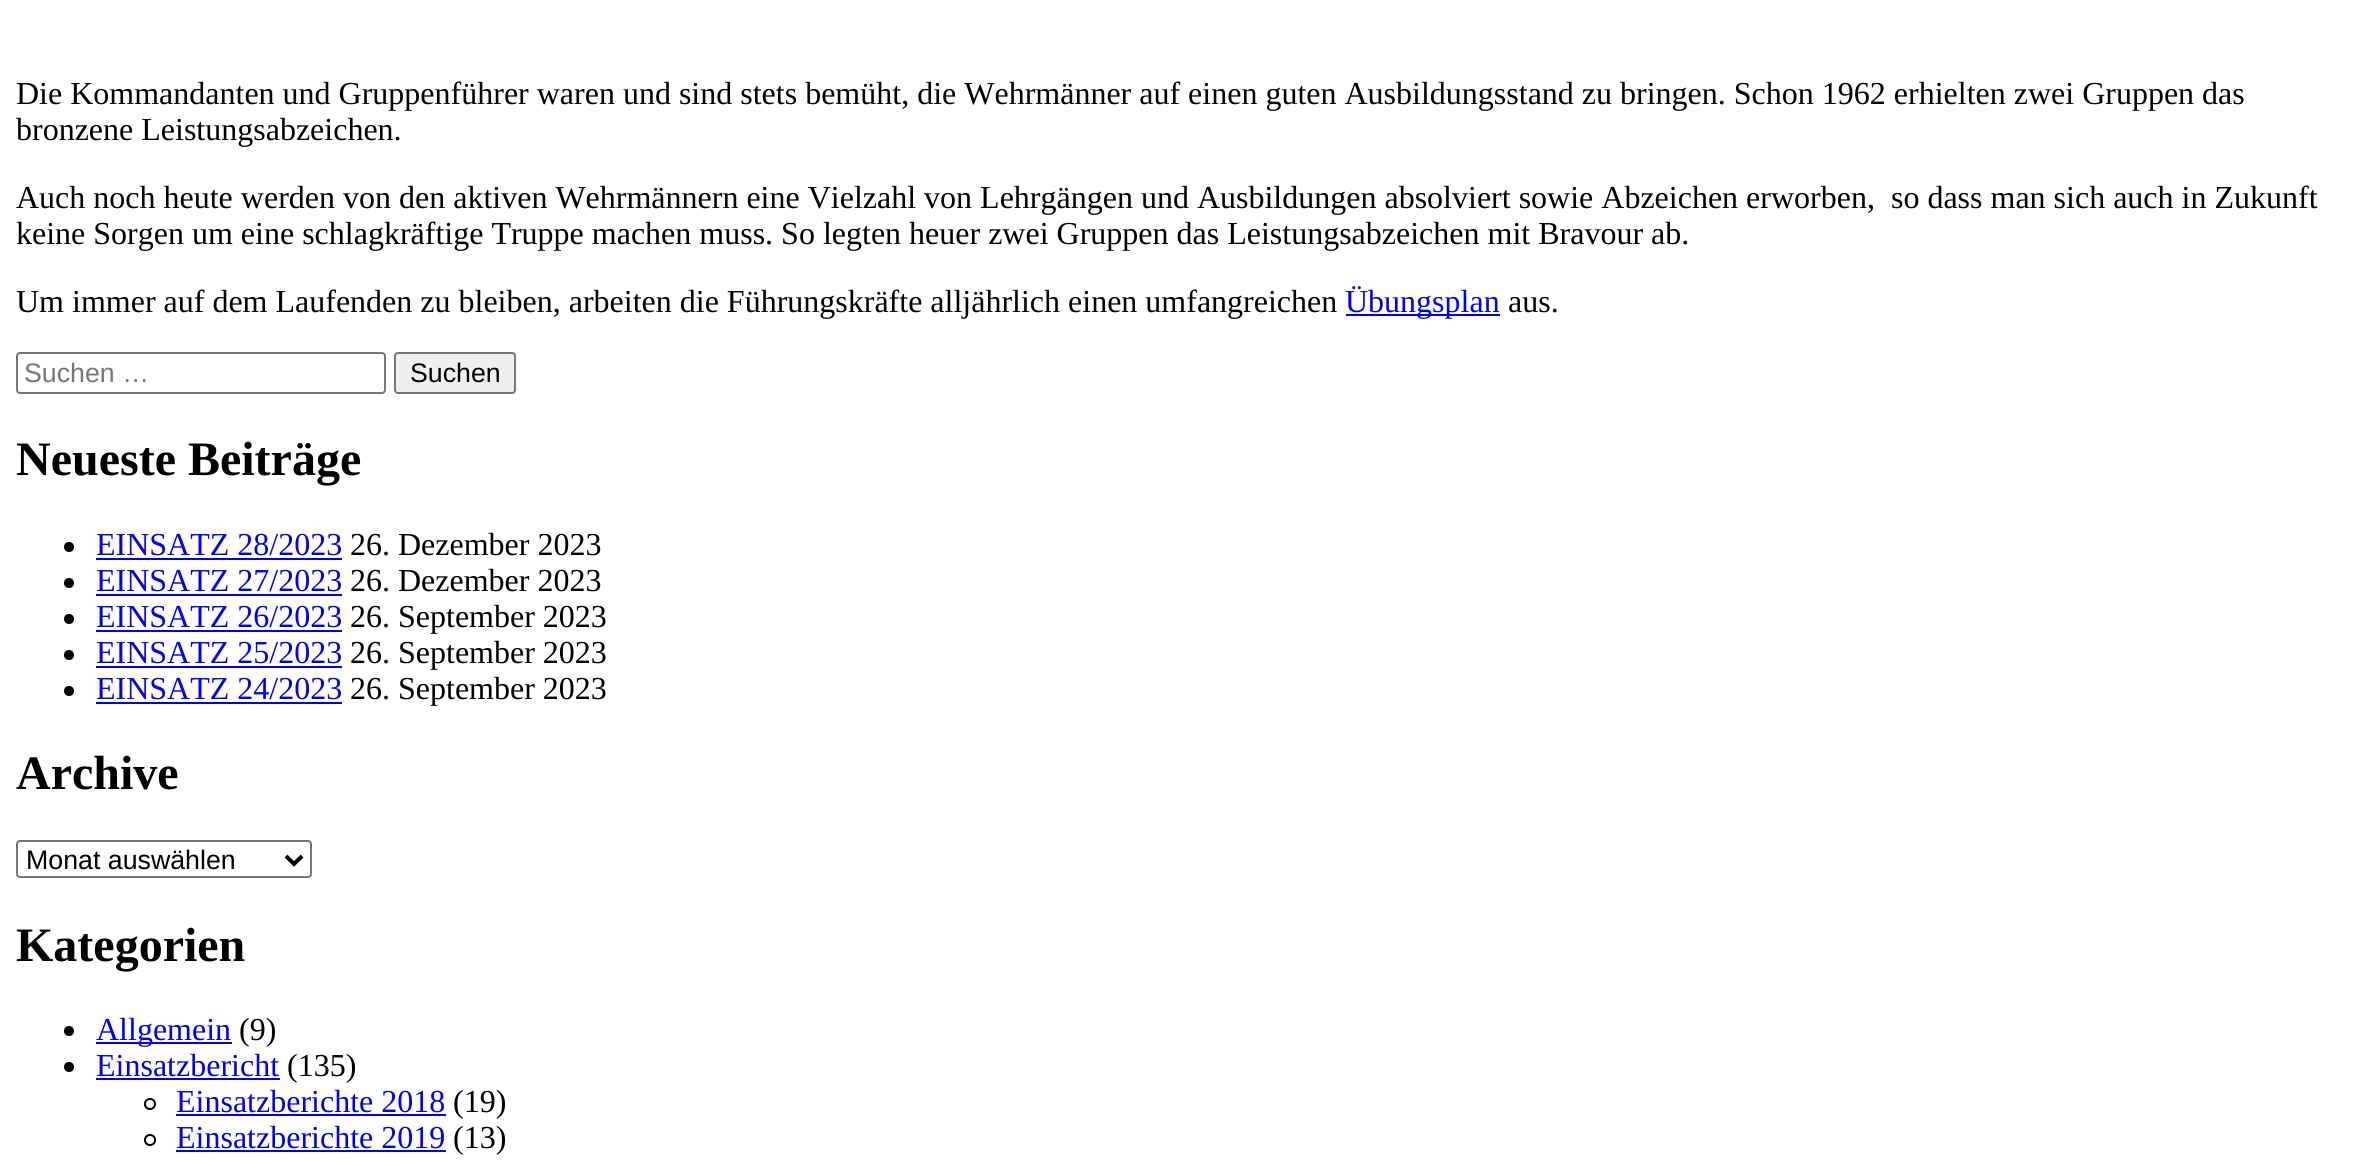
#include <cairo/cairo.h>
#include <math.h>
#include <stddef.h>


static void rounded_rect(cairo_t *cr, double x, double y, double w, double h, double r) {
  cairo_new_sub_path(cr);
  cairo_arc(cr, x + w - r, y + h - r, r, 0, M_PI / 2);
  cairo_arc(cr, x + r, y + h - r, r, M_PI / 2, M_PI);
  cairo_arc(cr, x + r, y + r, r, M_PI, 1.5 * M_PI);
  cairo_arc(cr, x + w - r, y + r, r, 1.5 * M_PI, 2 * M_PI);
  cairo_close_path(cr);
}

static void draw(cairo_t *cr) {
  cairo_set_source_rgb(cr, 1, 1, 1);
  cairo_paint(cr);
  cairo_set_source_rgb(cr, 0, 0, 238 / 255.0);
  cairo_rectangle(cr, 1346, 314, 154, 2);
  cairo_fill(cr);
  rounded_rect(cr, 17, 353, 368, 40, 3);
  cairo_set_source_rgb(cr, 118 / 255.0, 118 / 255.0, 118 / 255.0);
  cairo_stroke(cr);
  cairo_set_source_rgb(cr, 239 / 255.0, 239 / 255.0, 239 / 255.0);
  rounded_rect(cr, 395, 353, 120, 40, 3);
  cairo_fill_preserve(cr);
  cairo_set_source_rgb(cr, 118 / 255.0, 118 / 255.0, 118 / 255.0);
  cairo_stroke(cr);
  cairo_set_source_rgb(cr, 0, 0, 0);
  cairo_arc(cr, 69, 547, 5, 0, 2 * M_PI);
  cairo_fill(cr);
  cairo_set_source_rgb(cr, 0, 0, 238 / 255.0);
  cairo_rectangle(cr, 96, 558, 246, 2);
  cairo_fill(cr);
  cairo_set_source_rgb(cr, 0, 0, 0);
  cairo_arc(cr, 69, 583, 5, 0, 2 * M_PI);
  cairo_fill(cr);
  cairo_set_source_rgb(cr, 0, 0, 238 / 255.0);
  cairo_rectangle(cr, 96, 594, 246, 2);
  cairo_fill(cr);
  cairo_set_source_rgb(cr, 0, 0, 0);
  cairo_arc(cr, 69, 619, 5, 0, 2 * M_PI);
  cairo_fill(cr);
  cairo_set_source_rgb(cr, 0, 0, 238 / 255.0);
  cairo_rectangle(cr, 96, 630, 246, 2);
  cairo_fill(cr);
  cairo_set_source_rgb(cr, 0, 0, 0);
  cairo_arc(cr, 69, 655, 5, 0, 2 * M_PI);
  cairo_fill(cr);
  cairo_set_source_rgb(cr, 0, 0, 238 / 255.0);
  cairo_rectangle(cr, 96, 666, 246, 2);
  cairo_fill(cr);
  cairo_set_source_rgb(cr, 0, 0, 0);
  cairo_arc(cr, 69, 691, 5, 0, 2 * M_PI);
  cairo_fill(cr);
  cairo_set_source_rgb(cr, 0, 0, 238 / 255.0);
  cairo_rectangle(cr, 96, 702, 246, 2);
  cairo_fill(cr);
  rounded_rect(cr, 17, 841, 294, 36, 3);
  cairo_set_source_rgb(cr, 118 / 255.0, 118 / 255.0, 118 / 255.0);
  cairo_stroke(cr);
  cairo_new_path(cr);
  cairo_move_to(cr, 286, 856);
  cairo_line_to(cr, 294, 864);
  cairo_line_to(cr, 302, 856);
  cairo_set_source_rgb(cr, 0, 0, 0);
  cairo_set_line_width(cr, 4);
  cairo_stroke(cr);
  cairo_arc(cr, 69, 1031, 5, 0, 2 * M_PI);
  cairo_fill(cr);
  cairo_set_source_rgb(cr, 0, 0, 238 / 255.0);
  cairo_rectangle(cr, 96, 1042, 136, 2);
  cairo_fill(cr);
  cairo_set_source_rgb(cr, 0, 0, 0);
  cairo_arc(cr, 69, 1067, 5, 0, 2 * M_PI);
  cairo_fill(cr);
  cairo_set_source_rgb(cr, 0, 0, 238 / 255.0);
  cairo_rectangle(cr, 96, 1078, 184, 2);
  cairo_fill(cr);
  cairo_arc(cr, 150, 1104, 5, 0, 2 * M_PI);
  cairo_set_source_rgb(cr, 0, 0, 0);
  cairo_set_line_width(cr, 2);
  cairo_stroke(cr);
  cairo_set_source_rgb(cr, 0, 0, 238 / 255.0);
  cairo_rectangle(cr, 176, 1114, 270, 2);
  cairo_fill(cr);
  cairo_arc(cr, 150, 1140, 5, 0, 2 * M_PI);
  cairo_set_source_rgb(cr, 0, 0, 0);
  cairo_stroke(cr);
  cairo_set_source_rgb(cr, 0, 0, 238 / 255.0);
  cairo_rectangle(cr, 176, 1150, 270, 2);
  cairo_fill(cr);
  cairo_select_font_face(cr, "Liberation Serif", CAIRO_FONT_SLANT_NORMAL, CAIRO_FONT_WEIGHT_NORMAL);
  cairo_set_font_size(cr, 32);
  cairo_set_source_rgb(cr, 0, 0, 0);
  cairo_move_to(cr, 16, 104);
  cairo_show_text(cr, "Die Kommandanten und Gruppenführer waren und sind stets bemüht, die Wehrmänner auf einen guten Ausbildungsstand zu bringen. Schon 1962 erhielten zwei Gruppen das");
  cairo_move_to(cr, 16, 140);
  cairo_show_text(cr, "bronzene Leistungsabzeichen.");
  cairo_move_to(cr, 16, 208);
  cairo_show_text(cr, "Auch noch heute werden von den aktiven Wehrmännern eine Vielzahl von Lehrgängen und Ausbildungen absolviert sowie Abzeichen erworben,  so dass man sich auch in Zukunft");
  cairo_move_to(cr, 16, 244);
  cairo_show_text(cr, "keine Sorgen um eine schlagkräftige Truppe machen muss. So legten heuer zwei Gruppen das Leistungsabzeichen mit Bravour ab.");
  cairo_move_to(cr, 16, 312);
  cairo_show_text(cr, "Um immer auf dem Laufenden zu bleiben, arbeiten die Führungskräfte alljährlich einen umfangreichen");
  cairo_set_source_rgb(cr, 0, 0, 238 / 255.0);
  cairo_move_to(cr, 1345, 312);
  cairo_show_text(cr, "Übungsplan");
  cairo_set_source_rgb(cr, 0, 0, 0);
  cairo_move_to(cr, 1508, 312);
  cairo_show_text(cr, "aus.");
  cairo_select_font_face(cr, "Liberation Sans", CAIRO_FONT_SLANT_NORMAL, CAIRO_FONT_WEIGHT_NORMAL);
  cairo_set_font_size(cr, 26.75);
  cairo_set_source_rgb(cr, 117 / 255.0, 117 / 255.0, 117 / 255.0);
  cairo_move_to(cr, 24, 382);
  cairo_show_text(cr, "Suchen …");
  cairo_set_source_rgb(cr, 0, 0, 0);
  cairo_move_to(cr, 410, 382);
  cairo_show_text(cr, "Suchen");
  cairo_select_font_face(cr, "Liberation Serif", CAIRO_FONT_SLANT_NORMAL, CAIRO_FONT_WEIGHT_BOLD);
  cairo_set_font_size(cr, 48);
  cairo_move_to(cr, 16, 475);
  cairo_show_text(cr, "Neueste Beiträge");
  cairo_select_font_face(cr, "Liberation Serif", CAIRO_FONT_SLANT_NORMAL, CAIRO_FONT_WEIGHT_NORMAL);
  cairo_set_font_size(cr, 32);
  cairo_set_source_rgb(cr, 0, 0, 238 / 255.0);
  cairo_move_to(cr, 96, 555);
  cairo_show_text(cr, "EINSATZ 28/2023");
  cairo_set_source_rgb(cr, 0, 0, 0);
  cairo_move_to(cr, 350, 555);
  cairo_show_text(cr, "26. Dezember 2023");
  cairo_set_source_rgb(cr, 0, 0, 238 / 255.0);
  cairo_move_to(cr, 96, 591);
  cairo_show_text(cr, "EINSATZ 27/2023");
  cairo_set_source_rgb(cr, 0, 0, 0);
  cairo_move_to(cr, 350, 591);
  cairo_show_text(cr, "26. Dezember 2023");
  cairo_set_source_rgb(cr, 0, 0, 238 / 255.0);
  cairo_move_to(cr, 96, 627);
  cairo_show_text(cr, "EINSATZ 26/2023");
  cairo_set_source_rgb(cr, 0, 0, 0);
  cairo_move_to(cr, 350, 627);
  cairo_show_text(cr, "26. September 2023");
  cairo_set_source_rgb(cr, 0, 0, 238 / 255.0);
  cairo_move_to(cr, 96, 663);
  cairo_show_text(cr, "EINSATZ 25/2023");
  cairo_set_source_rgb(cr, 0, 0, 0);
  cairo_move_to(cr, 350, 663);
  cairo_show_text(cr, "26. September 2023");
  cairo_set_source_rgb(cr, 0, 0, 238 / 255.0);
  cairo_move_to(cr, 96, 699);
  cairo_show_text(cr, "EINSATZ 24/2023");
  cairo_set_source_rgb(cr, 0, 0, 0);
  cairo_move_to(cr, 350, 699);
  cairo_show_text(cr, "26. September 2023");
  cairo_select_font_face(cr, "Liberation Serif", CAIRO_FONT_SLANT_NORMAL, CAIRO_FONT_WEIGHT_BOLD);
  cairo_set_font_size(cr, 48);
  cairo_move_to(cr, 16, 789);
  cairo_show_text(cr, "Archive");
  cairo_select_font_face(cr, "Liberation Sans", CAIRO_FONT_SLANT_NORMAL, CAIRO_FONT_WEIGHT_NORMAL);
  cairo_set_font_size(cr, 26.75);
  cairo_move_to(cr, 26, 869);
  cairo_show_text(cr, "Monat auswählen");
  cairo_select_font_face(cr, "Liberation Serif", CAIRO_FONT_SLANT_NORMAL, CAIRO_FONT_WEIGHT_BOLD);
  cairo_set_font_size(cr, 48);
  cairo_move_to(cr, 16, 961);
  cairo_show_text(cr, "Kategorien");
  cairo_select_font_face(cr, "Liberation Serif", CAIRO_FONT_SLANT_NORMAL, CAIRO_FONT_WEIGHT_NORMAL);
  cairo_set_font_size(cr, 32);
  cairo_set_source_rgb(cr, 0, 0, 238 / 255.0);
  cairo_move_to(cr, 96, 1040);
  cairo_show_text(cr, "Allgemein");
  cairo_set_source_rgb(cr, 0, 0, 0);
  cairo_move_to(cr, 239, 1040);
  cairo_show_text(cr, "(9)");
  cairo_set_source_rgb(cr, 0, 0, 238 / 255.0);
  cairo_move_to(cr, 96, 1076);
  cairo_show_text(cr, "Einsatzbericht");
  cairo_set_source_rgb(cr, 0, 0, 0);
  cairo_move_to(cr, 287, 1076);
  cairo_show_text(cr, "(135)");
  cairo_set_source_rgb(cr, 0, 0, 238 / 255.0);
  cairo_move_to(cr, 176, 1112);
  cairo_show_text(cr, "Einsatzberichte 2018");
  cairo_set_source_rgb(cr, 0, 0, 0);
  cairo_move_to(cr, 453, 1112);
  cairo_show_text(cr, "(19)");
  cairo_set_source_rgb(cr, 0, 0, 238 / 255.0);
  cairo_move_to(cr, 176, 1148);
  cairo_show_text(cr, "Einsatzberichte 2019");
  cairo_set_source_rgb(cr, 0, 0, 0);
  cairo_move_to(cr, 453, 1148);
  cairo_show_text(cr, "(13)");
}

int main(void) {
  cairo_surface_t *surface = cairo_image_surface_create(CAIRO_FORMAT_RGB24, 2379, 1163);
  cairo_t *cr = cairo_create(surface);
  cairo_font_options_t *options = cairo_font_options_create();
  cairo_font_options_set_hint_metrics(options, CAIRO_HINT_METRICS_OFF);
  cairo_font_options_set_hint_style(options, CAIRO_HINT_STYLE_NONE);
  cairo_set_font_options(cr, options);
  cairo_set_miter_limit(cr, 4);
  draw(cr);
  cairo_surface_write_to_png(surface, "out.png");
  cairo_font_options_destroy(options);
  cairo_destroy(cr);
  cairo_surface_destroy(surface);
  return 0;
}
